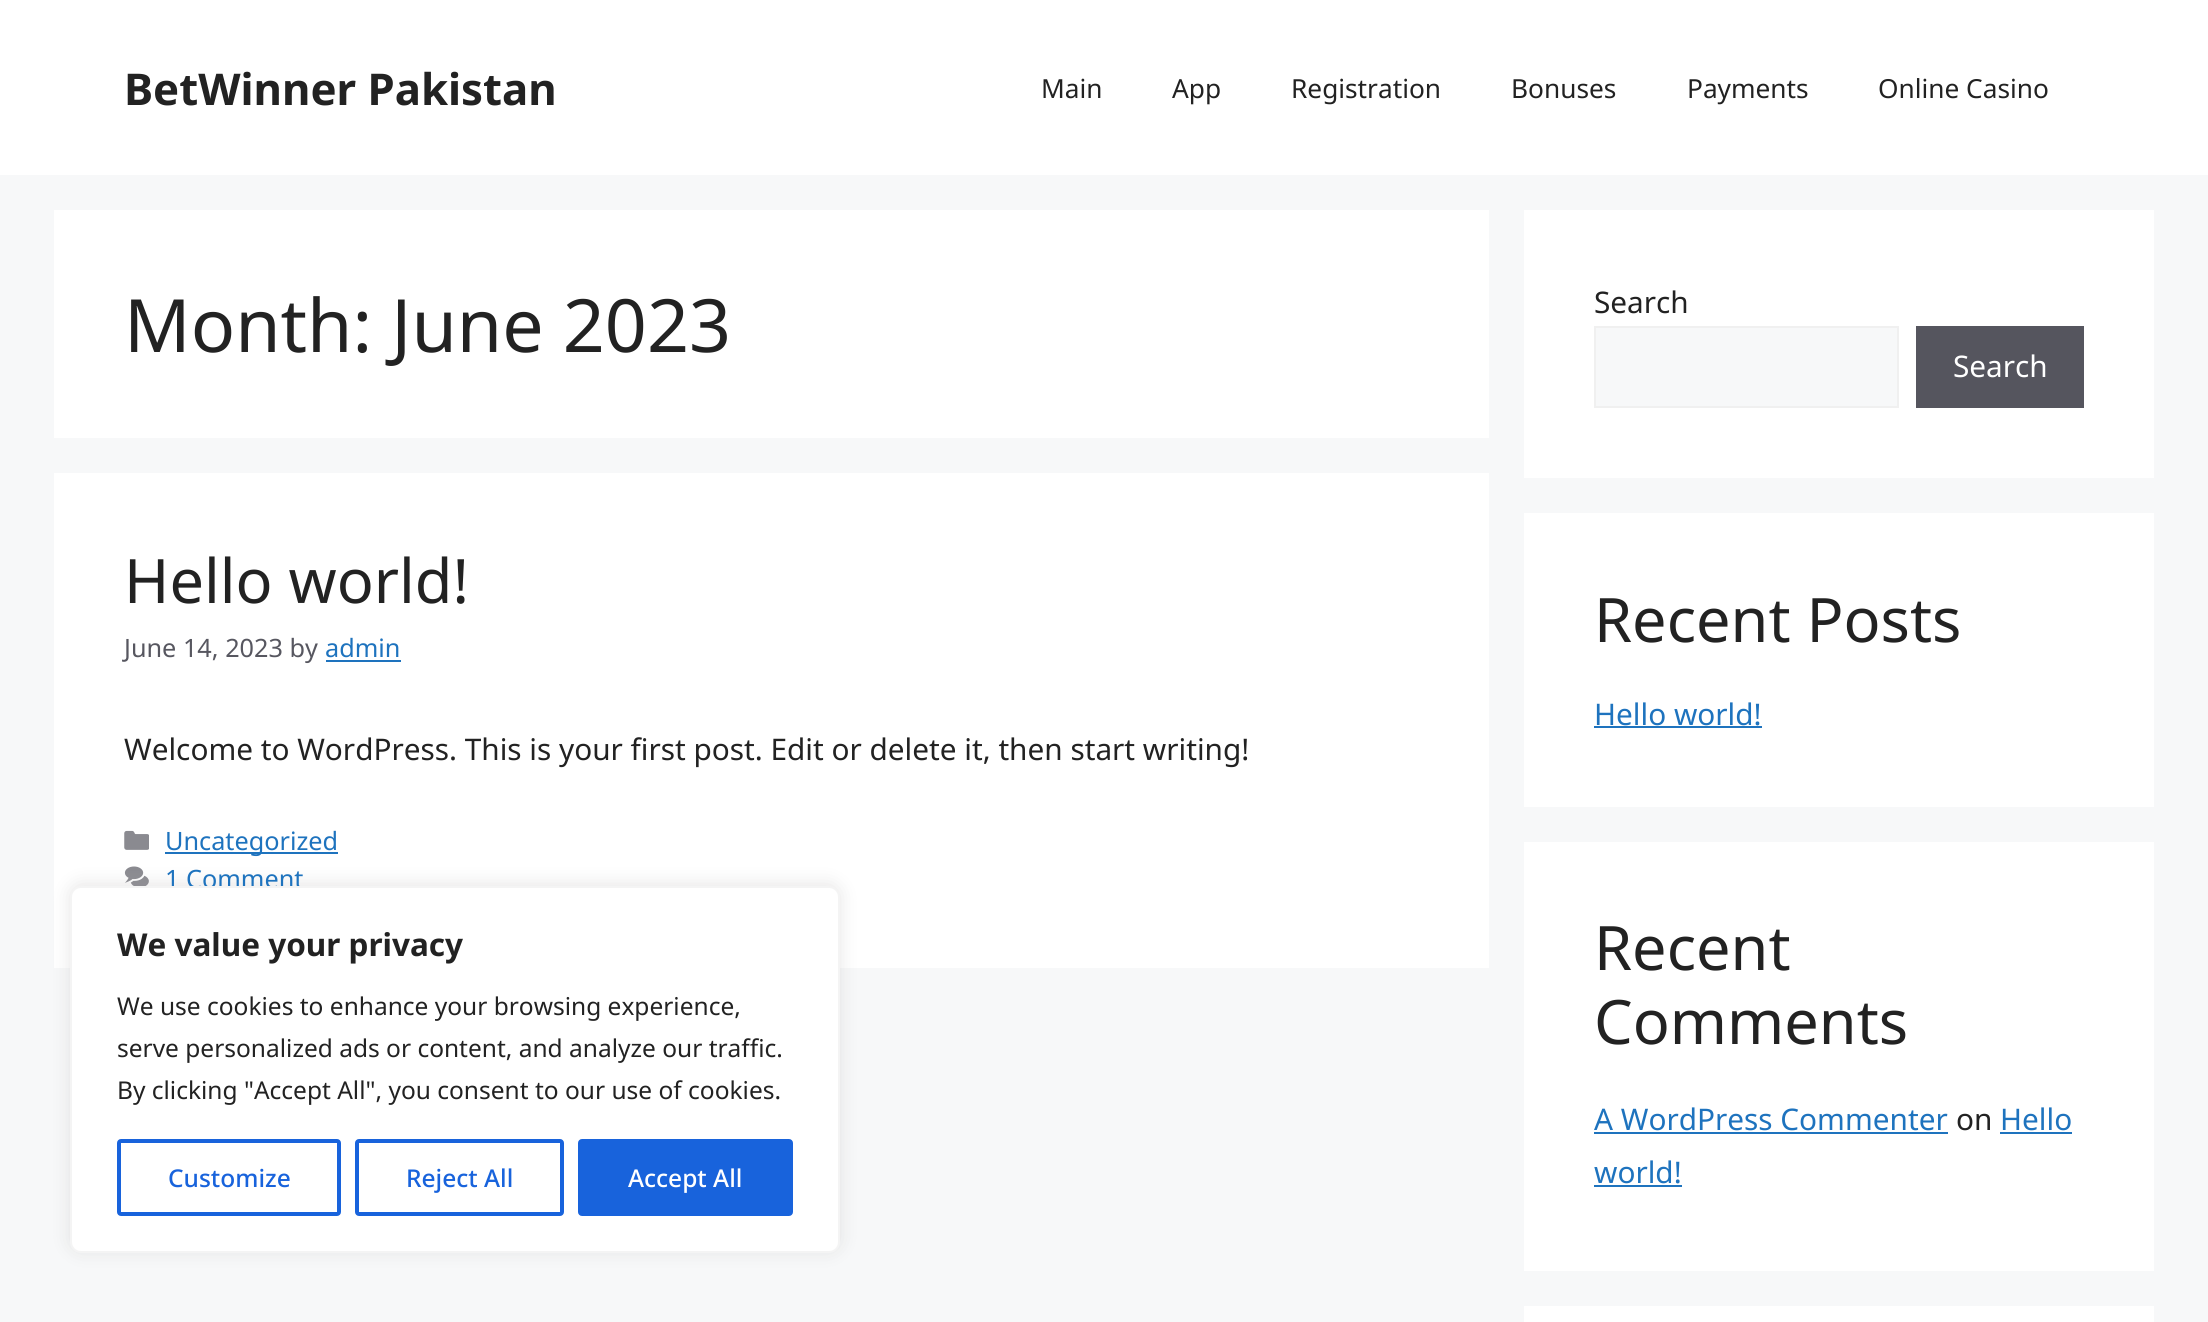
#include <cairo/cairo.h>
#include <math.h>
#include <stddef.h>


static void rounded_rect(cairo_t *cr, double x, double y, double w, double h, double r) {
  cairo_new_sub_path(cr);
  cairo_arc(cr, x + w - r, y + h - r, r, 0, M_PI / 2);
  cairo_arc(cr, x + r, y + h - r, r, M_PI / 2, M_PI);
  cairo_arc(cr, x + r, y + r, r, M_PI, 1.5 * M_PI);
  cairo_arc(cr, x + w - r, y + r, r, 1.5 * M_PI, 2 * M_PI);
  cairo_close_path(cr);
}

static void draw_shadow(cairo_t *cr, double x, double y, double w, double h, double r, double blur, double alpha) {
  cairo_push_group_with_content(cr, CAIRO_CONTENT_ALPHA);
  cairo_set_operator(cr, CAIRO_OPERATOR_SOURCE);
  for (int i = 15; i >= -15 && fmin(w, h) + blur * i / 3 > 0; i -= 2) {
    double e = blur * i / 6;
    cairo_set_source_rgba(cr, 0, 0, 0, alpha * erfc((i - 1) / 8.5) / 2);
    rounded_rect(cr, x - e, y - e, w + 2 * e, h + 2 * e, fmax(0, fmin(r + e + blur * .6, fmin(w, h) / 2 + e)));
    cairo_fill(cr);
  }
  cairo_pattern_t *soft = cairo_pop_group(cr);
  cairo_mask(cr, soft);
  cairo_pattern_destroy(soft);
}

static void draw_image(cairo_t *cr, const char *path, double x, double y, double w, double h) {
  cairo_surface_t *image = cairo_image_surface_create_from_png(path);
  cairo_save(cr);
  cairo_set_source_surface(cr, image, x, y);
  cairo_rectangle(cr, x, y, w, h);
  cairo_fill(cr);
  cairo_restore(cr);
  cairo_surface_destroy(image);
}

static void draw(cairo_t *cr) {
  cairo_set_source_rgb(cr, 247 / 255.0, 248 / 255.0, 249 / 255.0);
  cairo_paint(cr);
  cairo_set_source_rgb(cr, 1, 1, 1);
  cairo_rectangle(cr, 0, 0, 2208, 175);
  cairo_fill(cr);
  cairo_rectangle(cr, 54, 210, 1435, 228);
  cairo_fill(cr);
  cairo_rectangle(cr, 54, 473, 1435, 495);
  cairo_fill(cr);
  cairo_set_source_rgb(cr, 30 / 255.0, 115 / 255.0, 190 / 255.0);
  cairo_rectangle(cr, 326, 660, 75, 2);
  cairo_fill(cr);
  draw_image(cr, "images/1.png", 124, 830, 25, 20);
  cairo_rectangle(cr, 165, 852, 173, 2);
  cairo_fill(cr);
  draw_image(cr, "images/2.png", 124, 866, 25, 20);
  cairo_set_source_rgb(cr, 1, 1, 1);
  cairo_rectangle(cr, 1524, 210, 630, 268);
  cairo_fill(cr);
  cairo_set_source_rgb(cr, 247 / 255.0, 248 / 255.0, 249 / 255.0);
  cairo_rectangle(cr, 1595, 327, 303, 80);
  cairo_fill_preserve(cr);
  cairo_set_source_rgb(cr, 240 / 255.0, 240 / 255.0, 240 / 255.0);
  cairo_stroke(cr);
  cairo_set_source_rgb(cr, 85 / 255.0, 85 / 255.0, 94 / 255.0);
  cairo_rectangle(cr, 1916, 326, 168, 82);
  cairo_fill(cr);
  cairo_set_source_rgb(cr, 1, 1, 1);
  cairo_rectangle(cr, 1524, 513, 630, 294);
  cairo_fill(cr);
  cairo_set_source_rgb(cr, 30 / 255.0, 115 / 255.0, 190 / 255.0);
  cairo_rectangle(cr, 1594, 726, 168, 2);
  cairo_fill(cr);
  cairo_set_source_rgb(cr, 1, 1, 1);
  cairo_rectangle(cr, 1524, 842, 630, 429);
  cairo_fill(cr);
  cairo_set_source_rgb(cr, 30 / 255.0, 115 / 255.0, 190 / 255.0);
  cairo_rectangle(cr, 1594, 1132, 354, 2);
  cairo_fill(cr);
  cairo_rectangle(cr, 2000, 1132, 72, 2);
  cairo_fill(cr);
  cairo_rectangle(cr, 1594, 1185, 88, 2);
  cairo_fill(cr);
  cairo_set_source_rgb(cr, 1, 1, 1);
  cairo_rectangle(cr, 1524, 1306, 630, 16);
  cairo_fill(cr);
  cairo_set_source_rgb(cr, 172 / 255.0, 171 / 255.0, 171 / 255.0);
  draw_shadow(cr, 70, 884, 770, 367, 11, 9, 0.3);
  cairo_select_font_face(cr, "Noto Sans", CAIRO_FONT_SLANT_NORMAL, CAIRO_FONT_WEIGHT_BOLD);
  cairo_set_font_size(cr, 43.75);
  cairo_set_source_rgb(cr, 34 / 255.0, 34 / 255.0, 34 / 255.0);
  cairo_move_to(cr, 124, 105);
  cairo_show_text(cr, "BetWinner Pakistan");
  cairo_select_font_face(cr, "Noto Sans", CAIRO_FONT_SLANT_NORMAL, CAIRO_FONT_WEIGHT_NORMAL);
  cairo_set_font_size(cr, 26.25);
  cairo_move_to(cr, 1041, 98);
  cairo_show_text(cr, "Main");
  cairo_move_to(cr, 1172, 98);
  cairo_show_text(cr, "App");
  cairo_move_to(cr, 1291, 98);
  cairo_show_text(cr, "Registration");
  cairo_move_to(cr, 1511, 98);
  cairo_show_text(cr, "Bonuses");
  cairo_move_to(cr, 1687, 98);
  cairo_show_text(cr, "Payments");
  cairo_move_to(cr, 1878, 98);
  cairo_show_text(cr, "Online Casino");
  cairo_set_font_size(cr, 73.5);
  cairo_move_to(cr, 124, 352);
  cairo_show_text(cr, "Month: June 2023");
  cairo_set_font_size(cr, 61.25);
  cairo_move_to(cr, 124, 603);
  cairo_show_text(cr, "Hello world!");
  cairo_set_font_size(cr, 25.25);
  cairo_set_source_rgb(cr, 87 / 255.0, 87 / 255.0, 96 / 255.0);
  cairo_move_to(cr, 124, 657);
  cairo_show_text(cr, "June 14, 2023 by");
  cairo_set_source_rgb(cr, 30 / 255.0, 115 / 255.0, 190 / 255.0);
  cairo_move_to(cr, 325, 657);
  cairo_show_text(cr, "admin");
  cairo_set_font_size(cr, 29.75);
  cairo_set_source_rgb(cr, 34 / 255.0, 34 / 255.0, 34 / 255.0);
  cairo_move_to(cr, 124, 760);
  cairo_show_text(cr, "Welcome to WordPress. This is your first post. Edit or delete it, then start writing!");
  cairo_set_font_size(cr, 25.25);
  cairo_set_source_rgb(cr, 30 / 255.0, 115 / 255.0, 190 / 255.0);
  cairo_move_to(cr, 165, 850);
  cairo_show_text(cr, "Uncategorized");
  cairo_move_to(cr, 165, 888);
  cairo_show_text(cr, "1 Comment");
  cairo_set_font_size(cr, 29.75);
  cairo_set_source_rgb(cr, 34 / 255.0, 34 / 255.0, 34 / 255.0);
  cairo_move_to(cr, 1594, 313);
  cairo_show_text(cr, "Search");
  cairo_set_source_rgb(cr, 1, 1, 1);
  cairo_move_to(cr, 1953, 377);
  cairo_show_text(cr, "Search");
  cairo_set_font_size(cr, 61.25);
  cairo_set_source_rgb(cr, 34 / 255.0, 34 / 255.0, 34 / 255.0);
  cairo_move_to(cr, 1594, 642);
  cairo_show_text(cr, "Recent Posts");
  cairo_set_font_size(cr, 29.75);
  cairo_set_source_rgb(cr, 30 / 255.0, 115 / 255.0, 190 / 255.0);
  cairo_move_to(cr, 1594, 725);
  cairo_show_text(cr, "Hello world!");
  cairo_set_font_size(cr, 61.25);
  cairo_set_source_rgb(cr, 34 / 255.0, 34 / 255.0, 34 / 255.0);
  cairo_move_to(cr, 1594, 970);
  cairo_show_text(cr, "Recent");
  cairo_move_to(cr, 1594, 1044);
  cairo_show_text(cr, "Comments");
  cairo_set_font_size(cr, 29.75);
  cairo_set_source_rgb(cr, 30 / 255.0, 115 / 255.0, 190 / 255.0);
  cairo_move_to(cr, 1594, 1130);
  cairo_show_text(cr, "A WordPress Commenter");
  cairo_set_source_rgb(cr, 34 / 255.0, 34 / 255.0, 34 / 255.0);
  cairo_move_to(cr, 1956, 1130);
  cairo_show_text(cr, "on");
  cairo_set_source_rgb(cr, 30 / 255.0, 115 / 255.0, 190 / 255.0);
  cairo_move_to(cr, 2000, 1130);
  cairo_show_text(cr, "Hello");
  cairo_move_to(cr, 1594, 1183);
  cairo_show_text(cr, "world!");
  cairo_set_source_rgb(cr, 1, 1, 1);
  rounded_rect(cr, 71, 887, 768, 365, 10);
  cairo_fill_preserve(cr);
  cairo_set_source_rgb(cr, 244 / 255.0, 244 / 255.0, 244 / 255.0);
  cairo_stroke(cr);
  cairo_select_font_face(cr, "Noto Sans", CAIRO_FONT_SLANT_NORMAL, CAIRO_FONT_WEIGHT_BOLD);
  cairo_set_font_size(cr, 31.5);
  cairo_set_source_rgb(cr, 34 / 255.0, 34 / 255.0, 34 / 255.0);
  cairo_move_to(cr, 117, 956);
  cairo_show_text(cr, "We value your privacy");
  cairo_select_font_face(cr, "Noto Sans", CAIRO_FONT_SLANT_NORMAL, CAIRO_FONT_WEIGHT_NORMAL);
  cairo_set_font_size(cr, 24.5);
  cairo_move_to(cr, 117, 1015);
  cairo_show_text(cr, "We use cookies to enhance your browsing experience,");
  cairo_move_to(cr, 117, 1057);
  cairo_show_text(cr, "serve personalized ads or content, and analyze our traffic.");
  cairo_move_to(cr, 117, 1099);
  cairo_show_text(cr, "By clicking \"Accept All\", you consent to our use of cookies.");
  rounded_rect(cr, 119, 1141, 220, 73, 2);
  cairo_set_source_rgb(cr, 24 / 255.0, 99 / 255.0, 220 / 255.0);
  cairo_set_line_width(cr, 4);
  cairo_stroke(cr);
  cairo_select_font_face(cr, "Noto Sans Medium", CAIRO_FONT_SLANT_NORMAL, CAIRO_FONT_WEIGHT_NORMAL);
  cairo_move_to(cr, 168, 1187);
  cairo_show_text(cr, "Customize");
  rounded_rect(cr, 357, 1141, 205, 73, 2);
  cairo_stroke(cr);
  cairo_move_to(cr, 406, 1187);
  cairo_show_text(cr, "Reject All");
  rounded_rect(cr, 580, 1141, 211, 73, 2);
  cairo_fill_preserve(cr);
  cairo_stroke(cr);
  cairo_set_source_rgb(cr, 1, 1, 1);
  cairo_move_to(cr, 628, 1187);
  cairo_show_text(cr, "Accept All");
}

int main(void) {
  cairo_surface_t *surface = cairo_image_surface_create(CAIRO_FORMAT_RGB24, 2208, 1322);
  cairo_t *cr = cairo_create(surface);
  cairo_font_options_t *options = cairo_font_options_create();
  cairo_font_options_set_hint_metrics(options, CAIRO_HINT_METRICS_OFF);
  cairo_font_options_set_hint_style(options, CAIRO_HINT_STYLE_NONE);
  cairo_set_font_options(cr, options);
  cairo_set_miter_limit(cr, 4);
  draw(cr);
  cairo_surface_write_to_png(surface, "out.png");
  cairo_font_options_destroy(options);
  cairo_destroy(cr);
  cairo_surface_destroy(surface);
  return 0;
}
